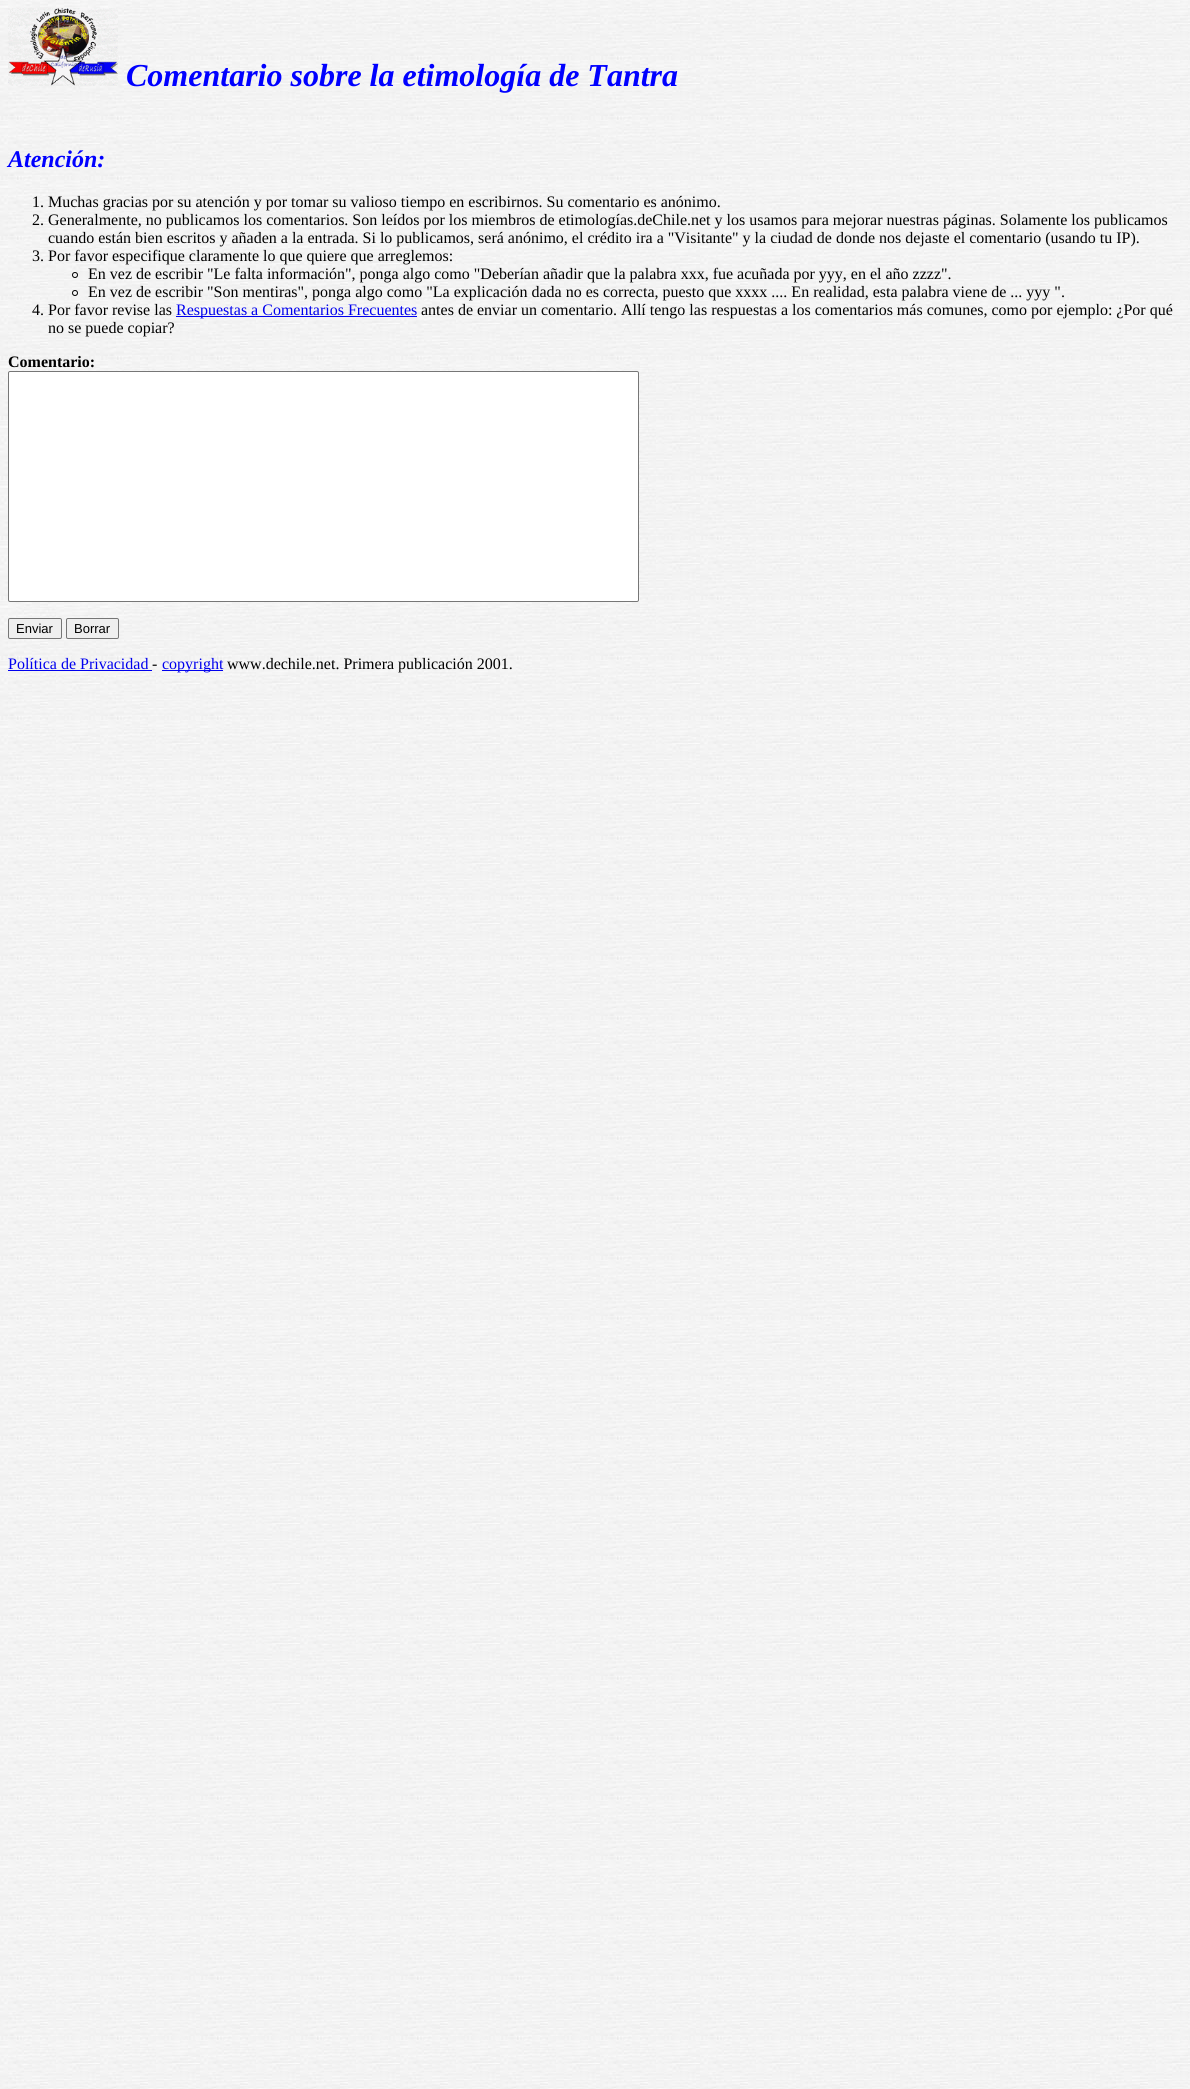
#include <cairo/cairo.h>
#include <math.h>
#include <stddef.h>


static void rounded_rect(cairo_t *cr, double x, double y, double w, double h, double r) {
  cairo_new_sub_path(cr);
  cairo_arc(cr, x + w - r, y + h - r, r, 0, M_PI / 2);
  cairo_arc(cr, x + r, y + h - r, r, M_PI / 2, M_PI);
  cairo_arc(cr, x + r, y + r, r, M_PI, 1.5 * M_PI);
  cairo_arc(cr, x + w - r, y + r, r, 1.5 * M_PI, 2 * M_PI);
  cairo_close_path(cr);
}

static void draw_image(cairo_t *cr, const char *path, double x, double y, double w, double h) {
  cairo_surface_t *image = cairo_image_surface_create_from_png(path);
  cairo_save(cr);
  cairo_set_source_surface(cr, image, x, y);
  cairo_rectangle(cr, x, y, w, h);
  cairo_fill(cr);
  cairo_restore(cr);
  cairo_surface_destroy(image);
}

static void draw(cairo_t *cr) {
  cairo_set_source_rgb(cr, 1, 1, 1);
  cairo_paint(cr);
  draw_image(cr, "images/1.png", 0, 0, 1190, 2089);
  draw_image(cr, "images/2.png", 8, 8, 110, 78);
  cairo_arc(cr, 75, 275, 2.5, 0, 2 * M_PI);
  cairo_set_source_rgb(cr, 0, 0, 0);
  cairo_set_line_width(cr, 1);
  cairo_stroke(cr);
  cairo_arc(cr, 75, 293, 2.5, 0, 2 * M_PI);
  cairo_stroke(cr);
  cairo_set_source_rgb(cr, 0, 0, 238 / 255.0);
  cairo_rectangle(cr, 176, 316, 241, 1);
  cairo_fill(cr);
  cairo_set_source_rgb(cr, 1, 1, 1);
  rounded_rect(cr, 8.5, 371.5, 630, 230, 1.5);
  cairo_fill_preserve(cr);
  cairo_set_source_rgb(cr, 118 / 255.0, 118 / 255.0, 118 / 255.0);
  cairo_stroke(cr);
  cairo_set_source_rgb(cr, 239 / 255.0, 239 / 255.0, 239 / 255.0);
  rounded_rect(cr, 8.5, 618.5, 53, 20, 1.5);
  cairo_fill_preserve(cr);
  cairo_set_source_rgb(cr, 118 / 255.0, 118 / 255.0, 118 / 255.0);
  cairo_stroke(cr);
  cairo_set_source_rgb(cr, 239 / 255.0, 239 / 255.0, 239 / 255.0);
  rounded_rect(cr, 66.5, 618.5, 52, 20, 1.5);
  cairo_fill_preserve(cr);
  cairo_set_source_rgb(cr, 118 / 255.0, 118 / 255.0, 118 / 255.0);
  cairo_stroke(cr);
  cairo_set_source_rgb(cr, 0, 0, 238 / 255.0);
  cairo_rectangle(cr, 8, 670, 144, 1);
  cairo_fill(cr);
  cairo_rectangle(cr, 162, 670, 61, 1);
  cairo_fill(cr);
  cairo_select_font_face(cr, "Liberation Serif", CAIRO_FONT_SLANT_ITALIC, CAIRO_FONT_WEIGHT_BOLD);
  cairo_set_font_size(cr, 32);
  cairo_set_source_rgb(cr, 0, 0, 1);
  cairo_move_to(cr, 126, 86);
  cairo_show_text(cr, "Comentario sobre la etimología de Tantra");
  cairo_set_font_size(cr, 24);
  cairo_move_to(cr, 8, 167);
  cairo_show_text(cr, "Atención:");
  cairo_select_font_face(cr, "Liberation Serif", CAIRO_FONT_SLANT_NORMAL, CAIRO_FONT_WEIGHT_NORMAL);
  cairo_set_font_size(cr, 16);
  cairo_set_source_rgb(cr, 0, 0, 0);
  cairo_move_to(cr, 32, 207);
  cairo_show_text(cr, "1. Muchas gracias por su atención y por tomar su valioso tiempo en escribirnos. Su comentario es anónimo.");
  cairo_move_to(cr, 32, 225);
  cairo_show_text(cr, "2. Generalmente, no publicamos los comentarios. Son leídos por los miembros de etimologías.deChile.net y los usamos para mejorar nuestras páginas. Solamente los publicamos");
  cairo_move_to(cr, 48, 243);
  cairo_show_text(cr, "cuando están bien escritos y añaden a la entrada. Si lo publicamos, será anónimo, el crédito ira a \"Visitante\" y la ciudad de donde nos dejaste el comentario (usando tu IP).");
  cairo_move_to(cr, 32, 261);
  cairo_show_text(cr, "3. Por favor especifique claramente lo que quiere que arreglemos:");
  cairo_move_to(cr, 88, 279);
  cairo_show_text(cr, "En vez de escribir \"Le falta información\", ponga algo como \"Deberían añadir que la palabra xxx, fue acuñada por yyy, en el año zzzz\".");
  cairo_move_to(cr, 88, 297);
  cairo_show_text(cr, "En vez de escribir \"Son mentiras\", ponga algo como \"La explicación dada no es correcta, puesto que xxxx .... En realidad, esta palabra viene de ... yyy \".");
  cairo_move_to(cr, 32, 315);
  cairo_show_text(cr, "4. Por favor revise las");
  cairo_set_source_rgb(cr, 0, 0, 238 / 255.0);
  cairo_move_to(cr, 176, 315);
  cairo_show_text(cr, "Respuestas a Comentarios Frecuentes");
  cairo_set_source_rgb(cr, 0, 0, 0);
  cairo_move_to(cr, 421, 315);
  cairo_show_text(cr, "antes de enviar un comentario. Allí tengo las respuestas a los comentarios más comunes, como por ejemplo: ¿Por qué");
  cairo_move_to(cr, 48, 333);
  cairo_show_text(cr, "no se puede copiar?");
  cairo_select_font_face(cr, "Liberation Serif", CAIRO_FONT_SLANT_NORMAL, CAIRO_FONT_WEIGHT_BOLD);
  cairo_move_to(cr, 8, 367);
  cairo_show_text(cr, "Comentario:");
  cairo_select_font_face(cr, "Liberation Sans", CAIRO_FONT_SLANT_NORMAL, CAIRO_FONT_WEIGHT_NORMAL);
  cairo_set_font_size(cr, 13);
  cairo_move_to(cr, 16, 633);
  cairo_show_text(cr, "Enviar");
  cairo_move_to(cr, 74, 633);
  cairo_show_text(cr, "Borrar");
  cairo_select_font_face(cr, "Liberation Serif", CAIRO_FONT_SLANT_NORMAL, CAIRO_FONT_WEIGHT_NORMAL);
  cairo_set_font_size(cr, 16);
  cairo_set_source_rgb(cr, 0, 0, 238 / 255.0);
  cairo_move_to(cr, 8, 669);
  cairo_show_text(cr, "Política de Privacidad");
  cairo_set_source_rgb(cr, 0, 0, 0);
  cairo_move_to(cr, 152, 669);
  cairo_show_text(cr, "-");
  cairo_set_source_rgb(cr, 0, 0, 238 / 255.0);
  cairo_move_to(cr, 162, 669);
  cairo_show_text(cr, "copyright");
  cairo_set_source_rgb(cr, 0, 0, 0);
  cairo_move_to(cr, 227, 669);
  cairo_show_text(cr, "www.dechile.net. Primera publicación 2001.");
}

int main(void) {
  cairo_surface_t *surface = cairo_image_surface_create(CAIRO_FORMAT_RGB24, 1190, 2089);
  cairo_t *cr = cairo_create(surface);
  cairo_font_options_t *options = cairo_font_options_create();
  cairo_font_options_set_hint_metrics(options, CAIRO_HINT_METRICS_OFF);
  cairo_font_options_set_hint_style(options, CAIRO_HINT_STYLE_NONE);
  cairo_set_font_options(cr, options);
  cairo_set_miter_limit(cr, 4);
  draw(cr);
  cairo_surface_write_to_png(surface, "out.png");
  cairo_font_options_destroy(options);
  cairo_destroy(cr);
  cairo_surface_destroy(surface);
  return 0;
}
